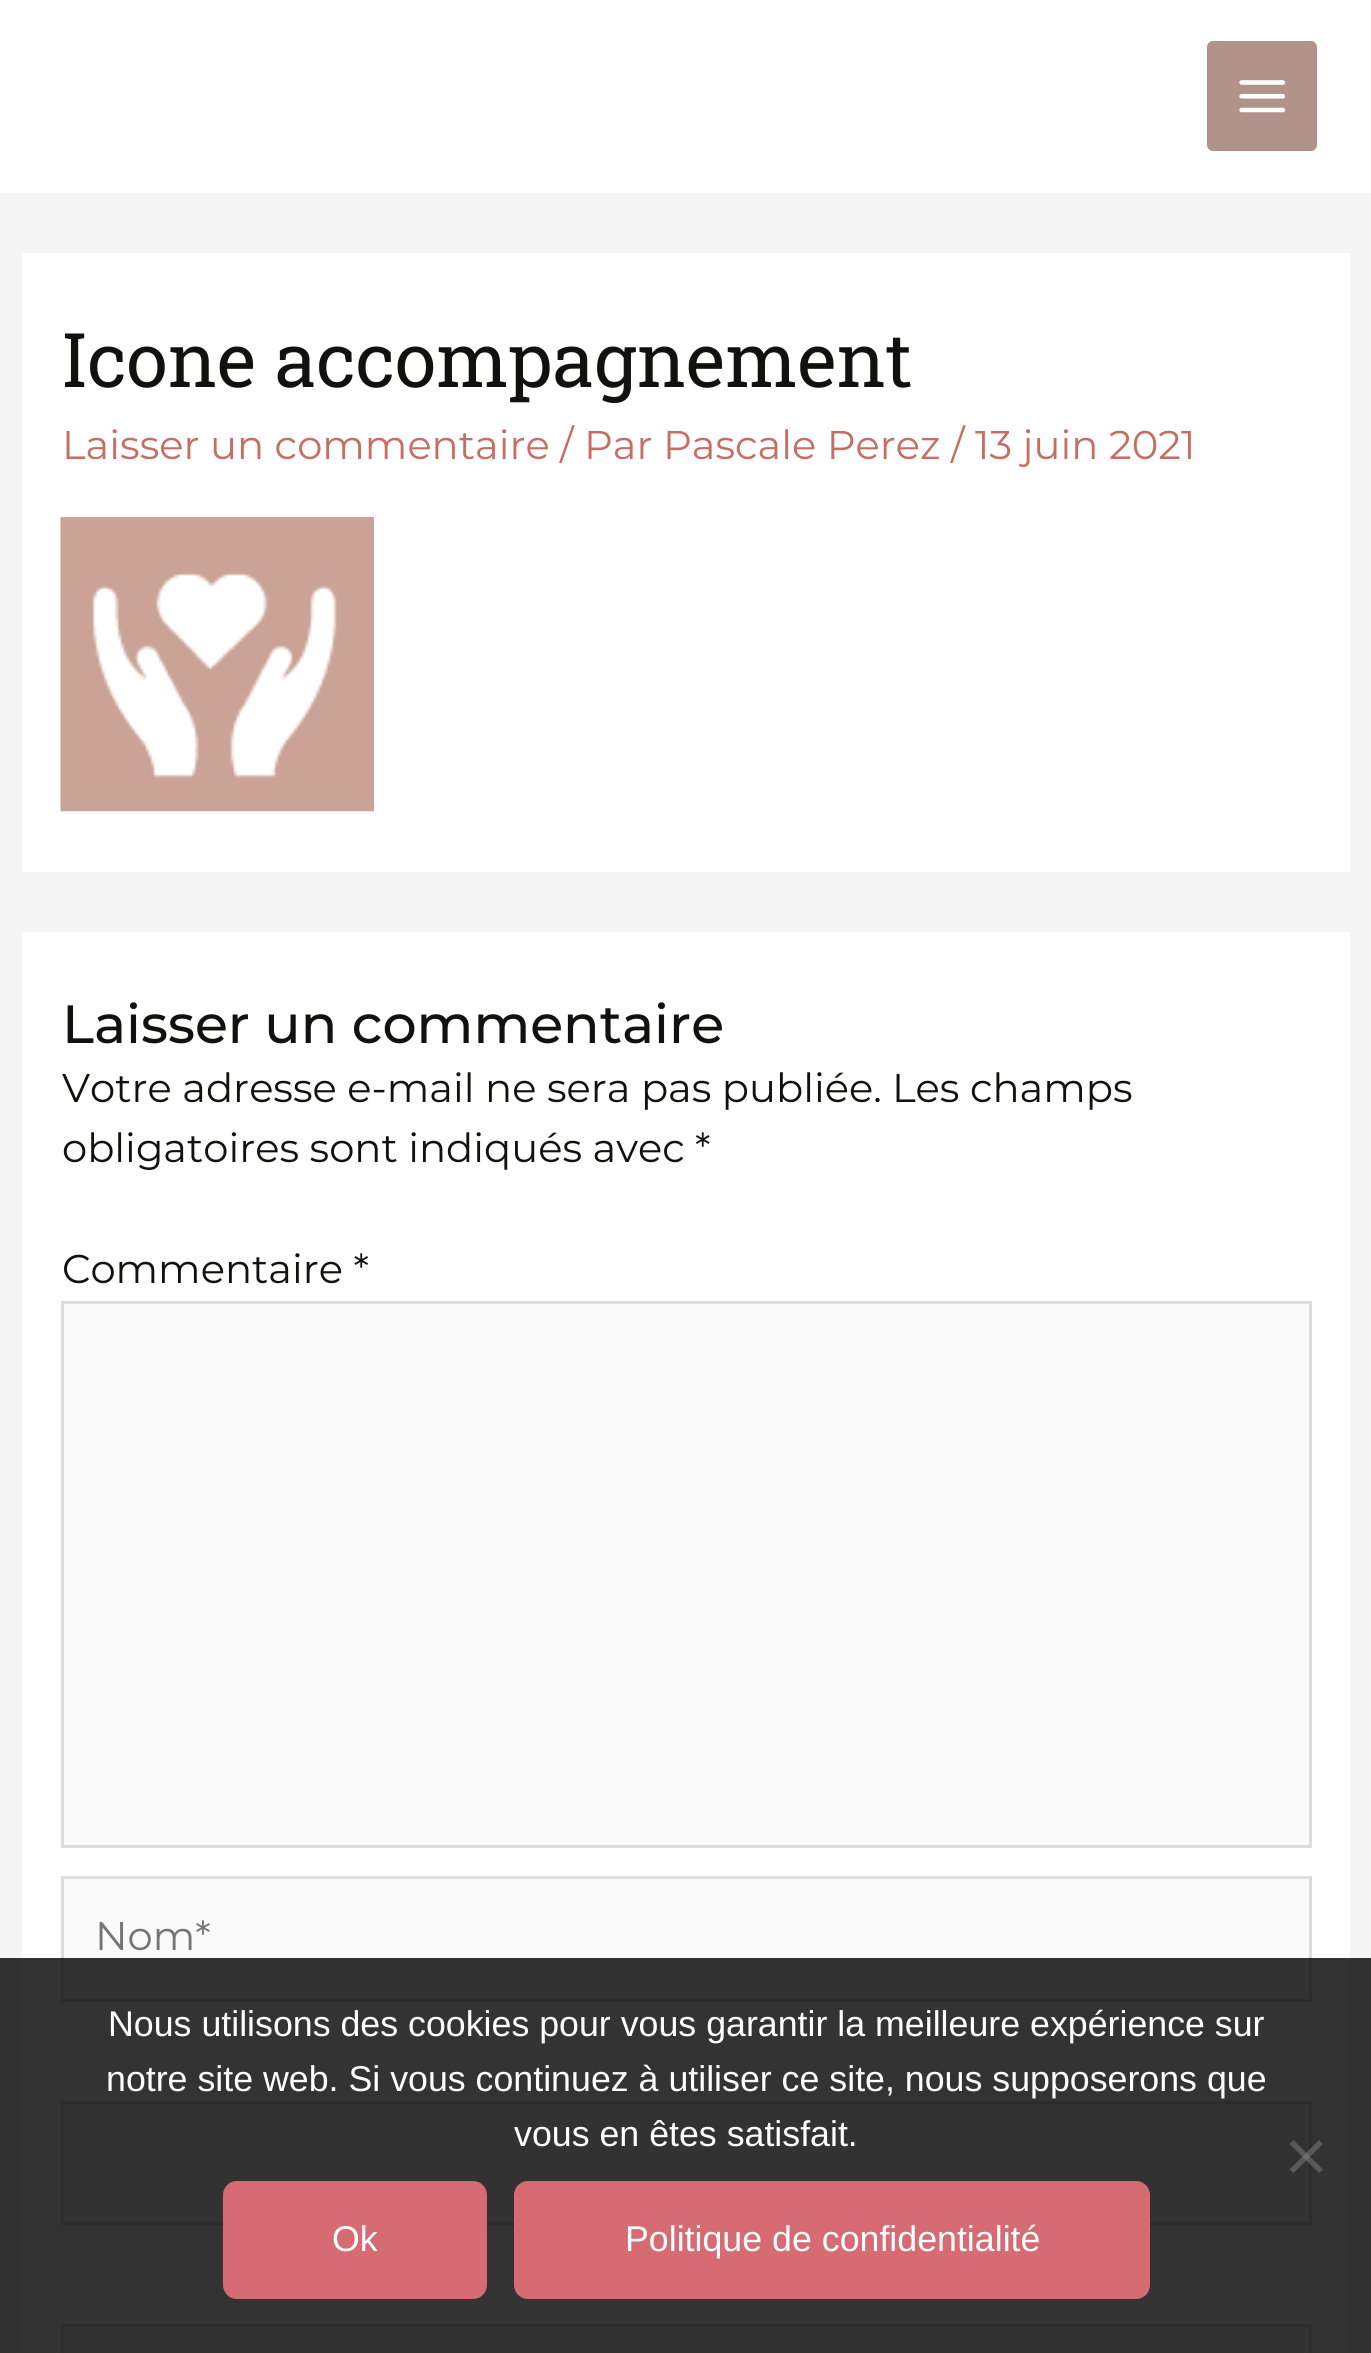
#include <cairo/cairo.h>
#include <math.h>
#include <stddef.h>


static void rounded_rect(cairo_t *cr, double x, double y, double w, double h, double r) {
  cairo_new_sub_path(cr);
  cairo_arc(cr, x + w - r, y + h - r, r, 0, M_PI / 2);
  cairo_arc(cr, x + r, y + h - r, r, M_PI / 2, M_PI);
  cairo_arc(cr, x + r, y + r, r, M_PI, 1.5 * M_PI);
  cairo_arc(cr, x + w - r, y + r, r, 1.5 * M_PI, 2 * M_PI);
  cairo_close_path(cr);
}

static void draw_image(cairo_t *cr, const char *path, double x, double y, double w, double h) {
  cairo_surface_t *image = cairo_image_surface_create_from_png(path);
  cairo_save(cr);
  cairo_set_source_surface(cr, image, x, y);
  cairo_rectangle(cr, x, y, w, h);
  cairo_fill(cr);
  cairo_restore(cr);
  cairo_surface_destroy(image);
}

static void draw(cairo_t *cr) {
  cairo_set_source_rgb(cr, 245 / 255.0, 245 / 255.0, 245 / 255.0);
  cairo_paint(cr);
  cairo_set_source_rgb(cr, 1, 1, 1);
  cairo_rectangle(cr, 0, 0, 1371, 193);
  cairo_fill(cr);
  cairo_set_source_rgb(cr, 177 / 255.0, 147 / 255.0, 138 / 255.0);
  rounded_rect(cr, 1207, 41, 110, 110, 6);
  cairo_fill(cr);
  draw_image(cr, "images/1.png", 1239, 80, 47, 33);
  cairo_set_source_rgb(cr, 1, 1, 1);
  cairo_rectangle(cr, 22, 253, 1328, 619);
  cairo_fill(cr);
  draw_image(cr, "images/2.png", 60, 517, 314, 295);
  cairo_rectangle(cr, 22, 932, 1328, 1421);
  cairo_fill(cr);
  cairo_set_source_rgb(cr, 250 / 255.0, 250 / 255.0, 250 / 255.0);
  cairo_rectangle(cr, 62.5, 1302.5, 1248, 544);
  cairo_fill_preserve(cr);
  cairo_set_source_rgb(cr, 221 / 255.0, 221 / 255.0, 221 / 255.0);
  cairo_set_line_width(cr, 3);
  cairo_stroke(cr);
  cairo_set_source_rgb(cr, 250 / 255.0, 250 / 255.0, 250 / 255.0);
  cairo_rectangle(cr, 62.5, 1877.5, 1248, 123);
  cairo_fill_preserve(cr);
  cairo_set_source_rgb(cr, 221 / 255.0, 221 / 255.0, 221 / 255.0);
  cairo_stroke(cr);
  cairo_set_source_rgb(cr, 250 / 255.0, 250 / 255.0, 250 / 255.0);
  cairo_rectangle(cr, 62.5, 2102.5, 1248, 121);
  cairo_fill_preserve(cr);
  cairo_set_source_rgb(cr, 221 / 255.0, 221 / 255.0, 221 / 255.0);
  cairo_stroke(cr);
  cairo_set_source_rgb(cr, 250 / 255.0, 250 / 255.0, 250 / 255.0);
  cairo_rectangle(cr, 62.5, 2325.5, 1248, 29);
  cairo_fill_preserve(cr);
  cairo_set_source_rgb(cr, 221 / 255.0, 221 / 255.0, 221 / 255.0);
  cairo_stroke(cr);
  cairo_set_source_rgba(cr, 0, 0, 0, 0.8);
  cairo_rectangle(cr, 0, 1958, 1371, 395);
  cairo_fill(cr);
  cairo_set_source_rgba(cr, 128 / 255.0, 128 / 255.0, 128 / 255.0, 0.5);
  cairo_new_path(cr);
  cairo_move_to(cr, 1319, 2140);
  cairo_line_to(cr, 1323, 2144);
  cairo_line_to(cr, 1293.5, 2173);
  cairo_line_to(cr, 1289.5, 2169.5);
  cairo_close_path(cr);
  cairo_fill(cr);
  cairo_new_path(cr);
  cairo_move_to(cr, 1289.5, 2144);
  cairo_line_to(cr, 1293.5, 2140);
  cairo_line_to(cr, 1323, 2169.5);
  cairo_line_to(cr, 1319, 2173);
  cairo_close_path(cr);
  cairo_fill(cr);
  cairo_set_source_rgb(cr, 215 / 255.0, 107 / 255.0, 115 / 255.0);
  rounded_rect(cr, 223, 2181, 264, 118, 14);
  cairo_fill(cr);
  rounded_rect(cr, 514, 2181, 636, 118, 14);
  cairo_fill(cr);
  cairo_select_font_face(cr, "Roboto Slab", CAIRO_FONT_SLANT_NORMAL, CAIRO_FONT_WEIGHT_NORMAL);
  cairo_set_font_size(cr, 75.25);
  cairo_set_source_rgb(cr, 17 / 255.0, 18 / 255.0, 13 / 255.0);
  cairo_move_to(cr, 62, 387);
  cairo_show_text(cr, "Icone accompagnement");
  cairo_select_font_face(cr, "Montserrat", CAIRO_FONT_SLANT_NORMAL, CAIRO_FONT_WEIGHT_NORMAL);
  cairo_set_font_size(cr, 40.1);
  cairo_set_source_rgb(cr, 199 / 255.0, 109 / 255.0, 101 / 255.0);
  cairo_move_to(cr, 62, 459);
  cairo_show_text(cr, "Laisser un commentaire");
  cairo_move_to(cr, 560, 459);
  cairo_show_text(cr, "/ Par Pascale Perez / 13 juin 2021");
  cairo_select_font_face(cr, "Montserrat Medium", CAIRO_FONT_SLANT_NORMAL, CAIRO_FONT_WEIGHT_NORMAL);
  cairo_set_font_size(cr, 53.75);
  cairo_set_source_rgb(cr, 17 / 255.0, 18 / 255.0, 13 / 255.0);
  cairo_move_to(cr, 62, 1043);
  cairo_show_text(cr, "Laisser un commentaire");
  cairo_select_font_face(cr, "Montserrat", CAIRO_FONT_SLANT_NORMAL, CAIRO_FONT_WEIGHT_NORMAL);
  cairo_set_font_size(cr, 40.1);
  cairo_move_to(cr, 62, 1102);
  cairo_show_text(cr, "Votre adresse e-mail ne sera pas publiée.");
  cairo_move_to(cr, 892, 1102);
  cairo_show_text(cr, "Les champs");
  cairo_move_to(cr, 62, 1162);
  cairo_show_text(cr, "obligatoires sont indiqués avec");
  cairo_move_to(cr, 695, 1162);
  cairo_show_text(cr, "*");
  cairo_move_to(cr, 62, 1283);
  cairo_show_text(cr, "Commentaire *");
  cairo_set_source_rgb(cr, 117 / 255.0, 117 / 255.0, 117 / 255.0);
  cairo_move_to(cr, 95, 1950);
  cairo_show_text(cr, "Nom*");
  cairo_select_font_face(cr, "Liberation Sans", CAIRO_FONT_SLANT_NORMAL, CAIRO_FONT_WEIGHT_NORMAL);
  cairo_set_font_size(cr, 35.75);
  cairo_set_source_rgb(cr, 1, 1, 1);
  cairo_move_to(cr, 108, 2036);
  cairo_show_text(cr, "Nous utilisons des cookies pour vous garantir la meilleure expérience sur");
  cairo_move_to(cr, 106, 2091);
  cairo_show_text(cr, "notre site web. Si vous continuez à utiliser ce site, nous supposerons que");
  cairo_move_to(cr, 514, 2146);
  cairo_show_text(cr, "vous en êtes satisfait.");
  cairo_move_to(cr, 332, 2251);
  cairo_show_text(cr, "Ok");
  cairo_move_to(cr, 625, 2251);
  cairo_show_text(cr, "Politique de confidentialité");
}

int main(void) {
  cairo_surface_t *surface = cairo_image_surface_create(CAIRO_FORMAT_RGB24, 1371, 2353);
  cairo_t *cr = cairo_create(surface);
  cairo_font_options_t *options = cairo_font_options_create();
  cairo_font_options_set_hint_metrics(options, CAIRO_HINT_METRICS_OFF);
  cairo_font_options_set_hint_style(options, CAIRO_HINT_STYLE_NONE);
  cairo_set_font_options(cr, options);
  cairo_set_miter_limit(cr, 4);
  draw(cr);
  cairo_surface_write_to_png(surface, "out.png");
  cairo_font_options_destroy(options);
  cairo_destroy(cr);
  cairo_surface_destroy(surface);
  return 0;
}
